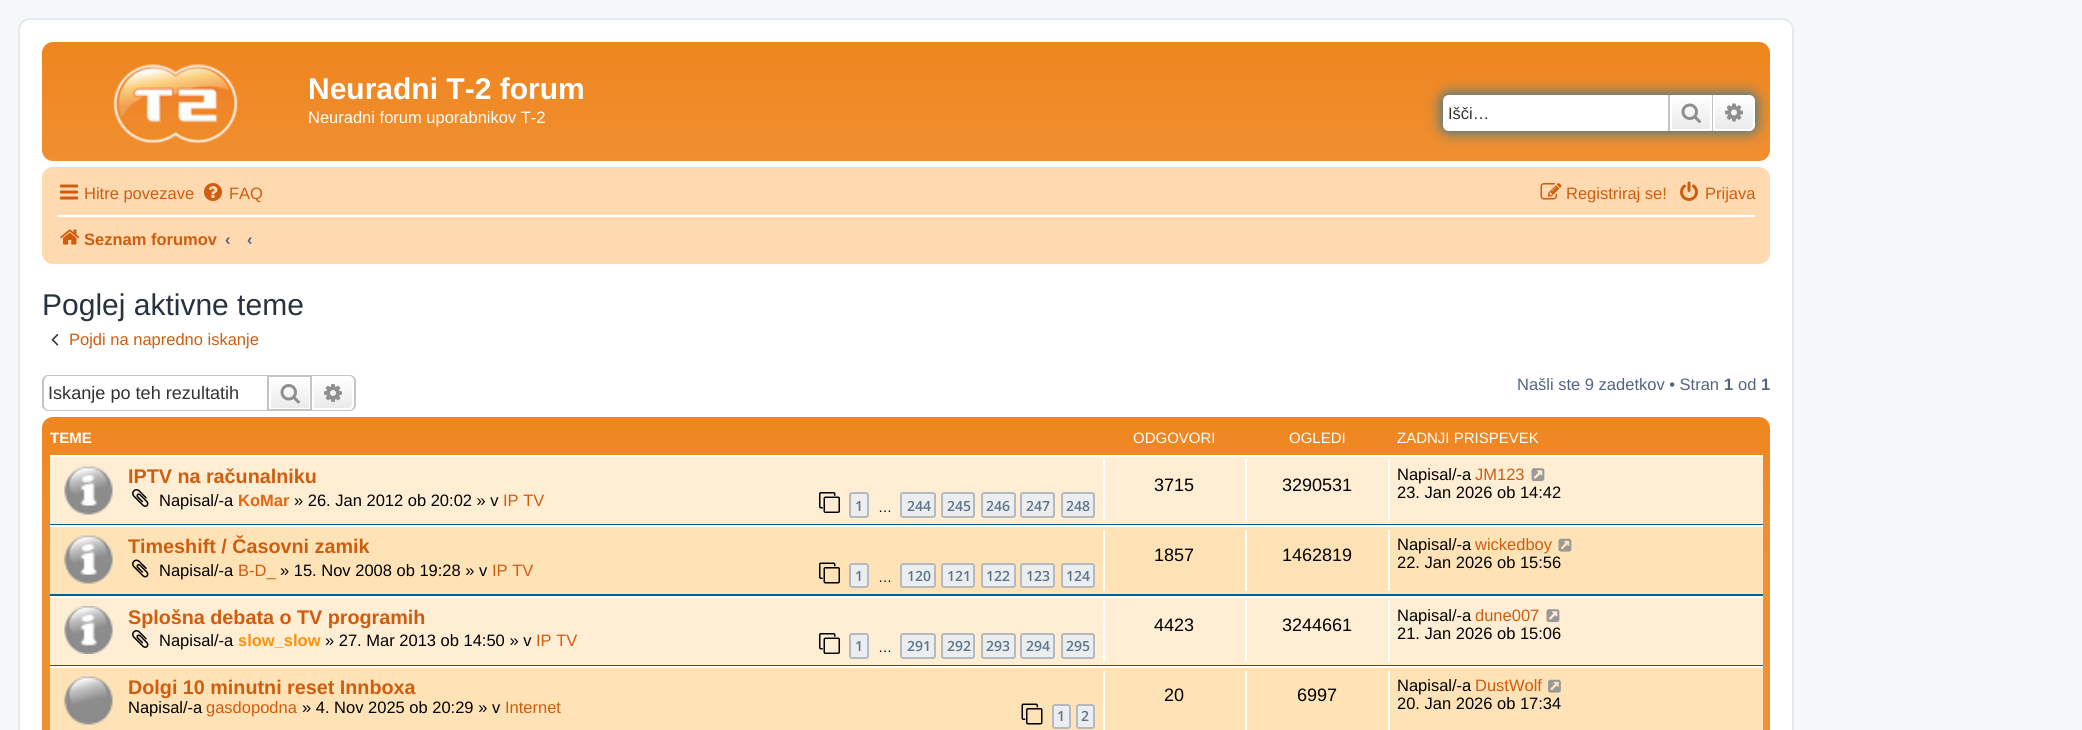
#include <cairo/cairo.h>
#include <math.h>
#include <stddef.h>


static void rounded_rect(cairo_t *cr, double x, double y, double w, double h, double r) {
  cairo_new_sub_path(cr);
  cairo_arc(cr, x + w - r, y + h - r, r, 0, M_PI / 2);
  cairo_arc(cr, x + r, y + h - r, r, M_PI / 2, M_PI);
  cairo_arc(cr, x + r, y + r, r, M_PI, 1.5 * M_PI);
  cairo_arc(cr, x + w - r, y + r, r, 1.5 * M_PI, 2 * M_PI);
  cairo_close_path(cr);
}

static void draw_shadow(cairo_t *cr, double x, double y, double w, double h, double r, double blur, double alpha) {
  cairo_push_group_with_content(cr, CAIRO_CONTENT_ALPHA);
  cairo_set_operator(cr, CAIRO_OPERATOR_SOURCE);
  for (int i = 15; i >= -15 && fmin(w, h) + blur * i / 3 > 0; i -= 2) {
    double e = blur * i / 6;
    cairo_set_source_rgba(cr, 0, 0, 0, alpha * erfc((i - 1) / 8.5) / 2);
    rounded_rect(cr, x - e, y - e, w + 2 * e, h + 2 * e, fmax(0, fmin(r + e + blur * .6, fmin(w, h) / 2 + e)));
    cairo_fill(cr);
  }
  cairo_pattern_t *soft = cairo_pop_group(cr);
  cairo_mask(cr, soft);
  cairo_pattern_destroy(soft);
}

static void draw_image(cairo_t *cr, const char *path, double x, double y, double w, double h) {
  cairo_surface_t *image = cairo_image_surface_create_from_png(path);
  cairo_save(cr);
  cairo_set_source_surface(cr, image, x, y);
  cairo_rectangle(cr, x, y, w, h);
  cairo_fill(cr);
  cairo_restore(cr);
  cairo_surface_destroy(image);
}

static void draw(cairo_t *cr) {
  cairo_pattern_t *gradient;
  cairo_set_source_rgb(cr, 245 / 255.0, 247 / 255.0, 250 / 255.0);
  cairo_paint(cr);
  cairo_set_source_rgb(cr, 1, 1, 1);
  rounded_rect(cr, 19, 19, 1774, 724, 11);
  cairo_fill_preserve(cr);
  cairo_set_source_rgb(cr, 230 / 255.0, 233 / 255.0, 237 / 255.0);
  cairo_stroke(cr);
  gradient = cairo_pattern_create_linear(906, 42, 906, 180);
  cairo_pattern_add_color_stop_rgba(gradient, 0, 239 / 255.0, 134 / 255.0, 31 / 255.0, 1);
  cairo_pattern_add_color_stop_rgba(gradient, 0.02, 239 / 255.0, 134 / 255.0, 31 / 255.0, 1);
  cairo_pattern_add_color_stop_rgba(gradient, 1, 240 / 255.0, 144 / 255.0, 51 / 255.0, 1);
  cairo_set_source(cr, gradient);
  cairo_pattern_destroy(gradient);
  rounded_rect(cr, 42, 42, 1728, 119, 11);
  cairo_fill(cr);
  draw_image(cr, "images/1.png", 113, 64, 125, 79);
  cairo_set_source_rgb(cr, 0, 117 / 255.0, 176 / 255.0);
  draw_shadow(cr, 1443, 95, 312, 36, 6, 7.5, 1);
  cairo_set_source_rgb(cr, 1, 1, 1);
  cairo_new_path(cr);
  cairo_move_to(cr, 1449, 95);
  cairo_line_to(cr, 1668, 95);
  cairo_line_to(cr, 1668, 131);
  cairo_line_to(cr, 1449, 131);
  cairo_curve_to(cr, 1445.5, 131, 1443, 128.5, 1443, 125);
  cairo_line_to(cr, 1443, 101);
  cairo_curve_to(cr, 1443, 97.5, 1445.5, 95, 1449, 95);
  cairo_close_path(cr);
  cairo_fill(cr);
  gradient = cairo_pattern_create_linear(1691, 95, 1691, 131);
  cairo_pattern_add_color_stop_rgba(gradient, 0, 1, 1, 1, 1);
  cairo_pattern_add_color_stop_rgba(gradient, 1, 233 / 255.0, 233 / 255.0, 233 / 255.0, 1);
  cairo_set_source(cr, gradient);
  cairo_pattern_destroy(gradient);
  cairo_rectangle(cr, 1672, 97, 38, 32);
  cairo_fill(cr);
  cairo_rectangle(cr, 1671, 96, 40, 34);
  cairo_set_source_rgb(cr, 1, 1, 1);
  cairo_stroke(cr);
  cairo_set_source_rgb(cr, 199 / 255.0, 195 / 255.0, 191 / 255.0);
  cairo_rectangle(cr, 1712, 95, 1, 36);
  cairo_fill(cr);
  cairo_rectangle(cr, 1668, 95, 2, 36);
  cairo_fill(cr);
  draw_image(cr, "images/2.png", 1681, 103, 20, 20);
  gradient = cairo_pattern_create_linear(1734, 95, 1734, 131);
  cairo_pattern_add_color_stop_rgba(gradient, 0, 1, 1, 1, 1);
  cairo_pattern_add_color_stop_rgba(gradient, 1, 233 / 255.0, 233 / 255.0, 233 / 255.0, 1);
  cairo_set_source(cr, gradient);
  cairo_pattern_destroy(gradient);
  cairo_new_path(cr);
  cairo_move_to(cr, 1714, 96);
  cairo_line_to(cr, 1749, 96);
  cairo_curve_to(cr, 1752, 96, 1754, 98, 1754, 101);
  cairo_line_to(cr, 1754, 125);
  cairo_curve_to(cr, 1754, 128, 1752, 130, 1749, 130);
  cairo_line_to(cr, 1714, 130);
  cairo_close_path(cr);
  cairo_fill_preserve(cr);
  cairo_set_source_rgb(cr, 1, 1, 1);
  cairo_stroke(cr);
  draw_image(cr, "images/3.png", 1725, 103, 18, 19);
  cairo_set_source_rgb(cr, 1, 218 / 255.0, 177 / 255.0);
  rounded_rect(cr, 42, 167, 1728, 97, 11);
  cairo_fill(cr);
  draw_image(cr, "images/4.png", 60, 184, 18, 16);
  draw_image(cr, "images/5.png", 204, 183, 18, 18);
  draw_image(cr, "images/6.png", 1540, 183, 22, 17);
  draw_image(cr, "images/7.png", 1680, 181, 18, 20);
  cairo_set_source_rgb(cr, 1, 1, 1);
  cairo_rectangle(cr, 57, 215, 1698, 2);
  cairo_fill(cr);
  draw_image(cr, "images/8.png", 60, 229, 20, 16);
  draw_image(cr, "images/9.png", 51, 334, 8, 12);
  cairo_set_source_rgb(cr, 199 / 255.0, 195 / 255.0, 191 / 255.0);
  cairo_set_fill_rule(cr, CAIRO_FILL_RULE_EVEN_ODD);
  cairo_new_path(cr);
  cairo_move_to(cr, 48, 375);
  cairo_line_to(cr, 267, 375);
  cairo_line_to(cr, 267, 411);
  cairo_line_to(cr, 48, 411);
  cairo_curve_to(cr, 45, 411, 42, 408, 42, 405);
  cairo_line_to(cr, 42, 381);
  cairo_curve_to(cr, 42, 378, 45, 375, 48, 375);
  cairo_close_path(cr);
  cairo_move_to(cr, 48, 376);
  cairo_line_to(cr, 267, 376);
  cairo_line_to(cr, 267, 410);
  cairo_line_to(cr, 48, 410);
  cairo_curve_to(cr, 46, 410, 44, 407, 44, 405);
  cairo_line_to(cr, 44, 381);
  cairo_curve_to(cr, 44, 379, 46, 376, 48, 376);
  cairo_close_path(cr);
  cairo_fill(cr);
  gradient = cairo_pattern_create_linear(290, 377, 290, 410);
  cairo_pattern_add_color_stop_rgba(gradient, 0, 1, 1, 1, 1);
  cairo_pattern_add_color_stop_rgba(gradient, 1, 233 / 255.0, 233 / 255.0, 233 / 255.0, 1);
  cairo_set_source(cr, gradient);
  cairo_pattern_destroy(gradient);
  cairo_rectangle(cr, 271, 381, 38, 27);
  cairo_fill(cr);
  cairo_rectangle(cr, 268, 376, 43, 34);
  cairo_set_source_rgb(cr, 199 / 255.0, 195 / 255.0, 191 / 255.0);
  cairo_stroke(cr);
  draw_image(cr, "images/10.png", 280, 384, 20, 20);
  gradient = cairo_pattern_create_linear(333, 377, 333, 410);
  cairo_pattern_add_color_stop_rgba(gradient, 0, 1, 1, 1, 1);
  cairo_pattern_add_color_stop_rgba(gradient, 1, 233 / 255.0, 233 / 255.0, 233 / 255.0, 1);
  cairo_set_source(cr, gradient);
  cairo_pattern_destroy(gradient);
  cairo_new_path(cr);
  cairo_move_to(cr, 313, 378);
  cairo_line_to(cr, 349, 378);
  cairo_curve_to(cr, 351, 378, 353, 380, 353, 382);
  cairo_line_to(cr, 353, 405);
  cairo_curve_to(cr, 353, 407, 351, 409, 349, 409);
  cairo_line_to(cr, 313, 409);
  cairo_close_path(cr);
  cairo_fill_preserve(cr);
  cairo_set_source_rgb(cr, 1, 1, 1);
  cairo_stroke(cr);
  cairo_set_source_rgb(cr, 199 / 255.0, 195 / 255.0, 191 / 255.0);
  cairo_new_path(cr);
  cairo_move_to(cr, 312, 375);
  cairo_line_to(cr, 350, 375);
  cairo_curve_to(cr, 353, 375, 356, 378, 356, 381);
  cairo_line_to(cr, 356, 405);
  cairo_curve_to(cr, 356, 408, 353, 411, 350, 411);
  cairo_line_to(cr, 312, 411);
  cairo_close_path(cr);
  cairo_move_to(cr, 312, 376);
  cairo_line_to(cr, 350, 376);
  cairo_curve_to(cr, 352, 376, 354, 379, 354, 381);
  cairo_line_to(cr, 354, 405);
  cairo_curve_to(cr, 354, 407, 352, 410, 350, 410);
  cairo_line_to(cr, 312, 410);
  cairo_close_path(cr);
  cairo_fill(cr);
  draw_image(cr, "images/11.png", 324, 384, 18, 18);
  gradient = cairo_pattern_create_linear(906, 417, 906, 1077);
  cairo_pattern_add_color_stop_rgba(gradient, 0, 239 / 255.0, 134 / 255.0, 31 / 255.0, 1);
  cairo_pattern_add_color_stop_rgba(gradient, 0, 239 / 255.0, 134 / 255.0, 31 / 255.0, 1);
  cairo_pattern_add_color_stop_rgba(gradient, 0.21, 240 / 255.0, 144 / 255.0, 51 / 255.0, 1);
  cairo_pattern_add_color_stop_rgba(gradient, 1, 240 / 255.0, 144 / 255.0, 51 / 255.0, 1);
  cairo_set_source(cr, gradient);
  cairo_pattern_destroy(gradient);
  rounded_rect(cr, 42, 417, 1728, 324, 11);
  cairo_fill(cr);
  cairo_set_source_rgb(cr, 1, 238 / 255.0, 211 / 255.0);
  cairo_rectangle(cr, 50, 457, 1713, 67);
  cairo_fill(cr);
  cairo_set_source_rgb(cr, 1, 1, 1);
  cairo_rectangle(cr, 50, 455, 1713, 2);
  cairo_fill(cr);
  cairo_set_source_rgb(cr, 0, 96 / 255.0, 143 / 255.0);
  cairo_rectangle(cr, 50, 524, 1713, 1);
  cairo_fill(cr);
  draw_image(cr, "images/12.png", 64, 466, 49, 49);
  draw_image(cr, "images/13.png", 132, 489, 17, 18);
  draw_image(cr, "images/14.png", 819, 492, 21, 21);
  cairo_set_source_rgb(cr, 236 / 255.0, 237 / 255.0, 238 / 255.0);
  rounded_rect(cr, 850, 493, 18, 24, 2);
  cairo_fill_preserve(cr);
  cairo_set_source_rgb(cr, 180 / 255.0, 186 / 255.0, 192 / 255.0);
  cairo_stroke(cr);
  cairo_set_source_rgb(cr, 236 / 255.0, 237 / 255.0, 238 / 255.0);
  rounded_rect(cr, 901, 493, 34, 24, 2);
  cairo_fill_preserve(cr);
  cairo_set_source_rgb(cr, 180 / 255.0, 186 / 255.0, 192 / 255.0);
  cairo_stroke(cr);
  cairo_set_source_rgb(cr, 236 / 255.0, 237 / 255.0, 238 / 255.0);
  rounded_rect(cr, 942, 493, 32, 24, 2);
  cairo_fill_preserve(cr);
  cairo_set_source_rgb(cr, 180 / 255.0, 186 / 255.0, 192 / 255.0);
  cairo_stroke(cr);
  cairo_set_source_rgb(cr, 236 / 255.0, 237 / 255.0, 238 / 255.0);
  rounded_rect(cr, 982, 493, 33, 24, 2);
  cairo_fill_preserve(cr);
  cairo_set_source_rgb(cr, 180 / 255.0, 186 / 255.0, 192 / 255.0);
  cairo_stroke(cr);
  cairo_set_source_rgb(cr, 236 / 255.0, 237 / 255.0, 238 / 255.0);
  rounded_rect(cr, 1021, 493, 33, 24, 2);
  cairo_fill_preserve(cr);
  cairo_set_source_rgb(cr, 180 / 255.0, 186 / 255.0, 192 / 255.0);
  cairo_stroke(cr);
  cairo_set_source_rgb(cr, 236 / 255.0, 237 / 255.0, 238 / 255.0);
  rounded_rect(cr, 1062, 493, 32, 24, 2);
  cairo_fill_preserve(cr);
  cairo_set_source_rgb(cr, 180 / 255.0, 186 / 255.0, 192 / 255.0);
  cairo_stroke(cr);
  cairo_set_source_rgb(cr, 1, 1, 1);
  cairo_rectangle(cr, 1103, 459, 2, 62);
  cairo_fill(cr);
  cairo_rectangle(cr, 1245, 459, 2, 62);
  cairo_fill(cr);
  cairo_rectangle(cr, 1388, 459, 2, 62);
  cairo_fill(cr);
  draw_image(cr, "images/15.png", 1531, 468, 14, 14);
  cairo_set_source_rgb(cr, 1, 227 / 255.0, 183 / 255.0);
  cairo_rectangle(cr, 50, 527, 1713, 67);
  cairo_fill(cr);
  cairo_set_source_rgb(cr, 1, 1, 1);
  cairo_rectangle(cr, 50, 525, 1713, 2);
  cairo_fill(cr);
  cairo_set_source_rgb(cr, 0, 96 / 255.0, 143 / 255.0);
  cairo_rectangle(cr, 50, 594, 1713, 2);
  cairo_fill(cr);
  draw_image(cr, "images/16.png", 64, 535, 49, 49);
  draw_image(cr, "images/17.png", 132, 559, 17, 19);
  draw_image(cr, "images/18.png", 819, 562, 21, 22);
  cairo_set_source_rgb(cr, 236 / 255.0, 237 / 255.0, 238 / 255.0);
  rounded_rect(cr, 850, 564, 18, 23, 2);
  cairo_fill_preserve(cr);
  cairo_set_source_rgb(cr, 180 / 255.0, 186 / 255.0, 192 / 255.0);
  cairo_stroke(cr);
  cairo_set_source_rgb(cr, 236 / 255.0, 237 / 255.0, 238 / 255.0);
  rounded_rect(cr, 901, 564, 34, 23, 2);
  cairo_fill_preserve(cr);
  cairo_set_source_rgb(cr, 180 / 255.0, 186 / 255.0, 192 / 255.0);
  cairo_stroke(cr);
  cairo_set_source_rgb(cr, 236 / 255.0, 237 / 255.0, 238 / 255.0);
  rounded_rect(cr, 942, 564, 32, 23, 2);
  cairo_fill_preserve(cr);
  cairo_set_source_rgb(cr, 180 / 255.0, 186 / 255.0, 192 / 255.0);
  cairo_stroke(cr);
  cairo_set_source_rgb(cr, 236 / 255.0, 237 / 255.0, 238 / 255.0);
  rounded_rect(cr, 982, 564, 33, 23, 2);
  cairo_fill_preserve(cr);
  cairo_set_source_rgb(cr, 180 / 255.0, 186 / 255.0, 192 / 255.0);
  cairo_stroke(cr);
  cairo_set_source_rgb(cr, 236 / 255.0, 237 / 255.0, 238 / 255.0);
  rounded_rect(cr, 1021, 564, 33, 23, 2);
  cairo_fill_preserve(cr);
  cairo_set_source_rgb(cr, 180 / 255.0, 186 / 255.0, 192 / 255.0);
  cairo_stroke(cr);
  cairo_set_source_rgb(cr, 236 / 255.0, 237 / 255.0, 238 / 255.0);
  rounded_rect(cr, 1062, 564, 32, 23, 2);
  cairo_fill_preserve(cr);
  cairo_set_source_rgb(cr, 180 / 255.0, 186 / 255.0, 192 / 255.0);
  cairo_stroke(cr);
  cairo_set_source_rgb(cr, 1, 1, 1);
  cairo_rectangle(cr, 1103, 530, 2, 61);
  cairo_fill(cr);
  cairo_rectangle(cr, 1245, 530, 2, 61);
  cairo_fill(cr);
  cairo_rectangle(cr, 1388, 530, 2, 61);
  cairo_fill(cr);
  draw_image(cr, "images/19.png", 1558, 538, 14, 14);
  cairo_set_source_rgb(cr, 1, 238 / 255.0, 211 / 255.0);
  cairo_rectangle(cr, 50, 598, 1713, 67);
  cairo_fill(cr);
  cairo_set_source_rgb(cr, 1, 1, 1);
  cairo_rectangle(cr, 50, 596, 1713, 2);
  cairo_fill(cr);
  cairo_set_source_rgb(cr, 0, 96 / 255.0, 143 / 255.0);
  cairo_rectangle(cr, 50, 665, 1713, 1);
  cairo_fill(cr);
  draw_image(cr, "images/20.png", 64, 606, 49, 48);
  draw_image(cr, "images/13.png", 132, 630, 17, 18);
  draw_image(cr, "images/14.png", 819, 633, 21, 21);
  cairo_set_source_rgb(cr, 236 / 255.0, 237 / 255.0, 238 / 255.0);
  rounded_rect(cr, 850, 634, 18, 24, 2);
  cairo_fill_preserve(cr);
  cairo_set_source_rgb(cr, 180 / 255.0, 186 / 255.0, 192 / 255.0);
  cairo_stroke(cr);
  cairo_set_source_rgb(cr, 236 / 255.0, 237 / 255.0, 238 / 255.0);
  rounded_rect(cr, 901, 634, 34, 24, 2);
  cairo_fill_preserve(cr);
  cairo_set_source_rgb(cr, 180 / 255.0, 186 / 255.0, 192 / 255.0);
  cairo_stroke(cr);
  cairo_set_source_rgb(cr, 236 / 255.0, 237 / 255.0, 238 / 255.0);
  rounded_rect(cr, 942, 634, 32, 24, 2);
  cairo_fill_preserve(cr);
  cairo_set_source_rgb(cr, 180 / 255.0, 186 / 255.0, 192 / 255.0);
  cairo_stroke(cr);
  cairo_set_source_rgb(cr, 236 / 255.0, 237 / 255.0, 238 / 255.0);
  rounded_rect(cr, 982, 634, 33, 24, 2);
  cairo_fill_preserve(cr);
  cairo_set_source_rgb(cr, 180 / 255.0, 186 / 255.0, 192 / 255.0);
  cairo_stroke(cr);
  cairo_set_source_rgb(cr, 236 / 255.0, 237 / 255.0, 238 / 255.0);
  rounded_rect(cr, 1021, 634, 33, 24, 2);
  cairo_fill_preserve(cr);
  cairo_set_source_rgb(cr, 180 / 255.0, 186 / 255.0, 192 / 255.0);
  cairo_stroke(cr);
  cairo_set_source_rgb(cr, 236 / 255.0, 237 / 255.0, 238 / 255.0);
  rounded_rect(cr, 1062, 634, 32, 24, 2);
  cairo_fill_preserve(cr);
  cairo_set_source_rgb(cr, 180 / 255.0, 186 / 255.0, 192 / 255.0);
  cairo_stroke(cr);
  cairo_set_source_rgb(cr, 1, 1, 1);
  cairo_rectangle(cr, 1103, 600, 2, 62);
  cairo_fill(cr);
  cairo_rectangle(cr, 1245, 600, 2, 62);
  cairo_fill(cr);
  cairo_rectangle(cr, 1388, 600, 2, 62);
  cairo_fill(cr);
  draw_image(cr, "images/15.png", 1546, 609, 14, 14);
  cairo_set_source_rgb(cr, 1, 227 / 255.0, 183 / 255.0);
  cairo_rectangle(cr, 50, 668, 1713, 62);
  cairo_fill(cr);
  cairo_set_source_rgb(cr, 1, 1, 1);
  cairo_rectangle(cr, 50, 666, 1713, 2);
  cairo_fill(cr);
  draw_image(cr, "images/21.png", 64, 676, 49, 49);
  draw_image(cr, "images/22.png", 1021, 703, 22, 22);
  cairo_set_source_rgb(cr, 236 / 255.0, 237 / 255.0, 238 / 255.0);
  rounded_rect(cr, 1053, 705, 17, 23, 2);
  cairo_fill_preserve(cr);
  cairo_set_source_rgb(cr, 180 / 255.0, 186 / 255.0, 192 / 255.0);
  cairo_stroke(cr);
  cairo_set_source_rgb(cr, 236 / 255.0, 237 / 255.0, 238 / 255.0);
  rounded_rect(cr, 1077, 705, 17, 23, 2);
  cairo_fill_preserve(cr);
  cairo_set_source_rgb(cr, 180 / 255.0, 186 / 255.0, 192 / 255.0);
  cairo_stroke(cr);
  cairo_set_source_rgb(cr, 1, 1, 1);
  cairo_rectangle(cr, 1103, 671, 2, 59);
  cairo_fill(cr);
  cairo_rectangle(cr, 1245, 671, 2, 59);
  cairo_fill(cr);
  cairo_rectangle(cr, 1388, 671, 2, 59);
  cairo_fill(cr);
  draw_image(cr, "images/23.png", 1548, 679, 13, 14);
  cairo_select_font_face(cr, "Liberation Sans", CAIRO_FONT_SLANT_NORMAL, CAIRO_FONT_WEIGHT_BOLD);
  cairo_set_font_size(cr, 30);
  cairo_move_to(cr, 308, 99);
  cairo_show_text(cr, "Neuradni T-2 forum");
  cairo_select_font_face(cr, "Liberation Sans", CAIRO_FONT_SLANT_NORMAL, CAIRO_FONT_WEIGHT_NORMAL);
  cairo_set_font_size(cr, 16.5);
  cairo_move_to(cr, 308, 123);
  cairo_show_text(cr, "Neuradni forum uporabnikov T-2");
  cairo_set_source_rgb(cr, 51 / 255.0, 51 / 255.0, 51 / 255.0);
  cairo_move_to(cr, 1448, 119);
  cairo_show_text(cr, "Išči…");
  cairo_set_source_rgb(cr, 208 / 255.0, 92 / 255.0, 14 / 255.0);
  cairo_move_to(cr, 84, 199);
  cairo_show_text(cr, "Hitre povezave");
  cairo_move_to(cr, 229, 199);
  cairo_show_text(cr, "FAQ");
  cairo_move_to(cr, 1566, 199);
  cairo_show_text(cr, "Registriraj se!");
  cairo_move_to(cr, 1705, 199);
  cairo_show_text(cr, "Prijava");
  cairo_select_font_face(cr, "Liberation Sans", CAIRO_FONT_SLANT_NORMAL, CAIRO_FONT_WEIGHT_BOLD);
  cairo_move_to(cr, 84, 245);
  cairo_show_text(cr, "Seznam forumov");
  cairo_set_source_rgb(cr, 83 / 255.0, 100 / 255.0, 130 / 255.0);
  cairo_move_to(cr, 225, 245);
  cairo_show_text(cr, "‹");
  cairo_move_to(cr, 247, 245);
  cairo_show_text(cr, "‹");
  cairo_select_font_face(cr, "Liberation Sans", CAIRO_FONT_SLANT_NORMAL, CAIRO_FONT_WEIGHT_NORMAL);
  cairo_set_font_size(cr, 30);
  cairo_set_source_rgb(cr, 40 / 255.0, 49 / 255.0, 63 / 255.0);
  cairo_move_to(cr, 42, 315);
  cairo_show_text(cr, "Poglej aktivne teme");
  cairo_set_font_size(cr, 16.5);
  cairo_set_source_rgb(cr, 208 / 255.0, 92 / 255.0, 14 / 255.0);
  cairo_move_to(cr, 69, 345);
  cairo_show_text(cr, "Pojdi na napredno iskanje");
  cairo_set_font_size(cr, 18.1);
  cairo_set_source_rgb(cr, 51 / 255.0, 51 / 255.0, 51 / 255.0);
  cairo_move_to(cr, 48, 399);
  cairo_show_text(cr, "Iskanje po teh rezultatih");
  cairo_set_font_size(cr, 16.5);
  cairo_set_source_rgb(cr, 83 / 255.0, 100 / 255.0, 130 / 255.0);
  cairo_move_to(cr, 1517, 390);
  cairo_show_text(cr, "Našli ste 9 zadetkov • Stran");
  cairo_select_font_face(cr, "Liberation Sans", CAIRO_FONT_SLANT_NORMAL, CAIRO_FONT_WEIGHT_BOLD);
  cairo_move_to(cr, 1724, 390);
  cairo_show_text(cr, "1");
  cairo_select_font_face(cr, "Liberation Sans", CAIRO_FONT_SLANT_NORMAL, CAIRO_FONT_WEIGHT_NORMAL);
  cairo_move_to(cr, 1738, 390);
  cairo_show_text(cr, "od");
  cairo_select_font_face(cr, "Liberation Sans", CAIRO_FONT_SLANT_NORMAL, CAIRO_FONT_WEIGHT_BOLD);
  cairo_move_to(cr, 1761, 390);
  cairo_show_text(cr, "1");
  cairo_save(cr);
  cairo_set_fill_rule(cr, CAIRO_FILL_RULE_WINDING);
  cairo_rectangle(cr, 50, 425, 1713, 30);
  cairo_clip(cr);
  cairo_set_font_size(cr, 15);
  cairo_set_source_rgb(cr, 1, 1, 1);
  cairo_move_to(cr, 50, 443);
  cairo_show_text(cr, "TEME");
  cairo_restore(cr);
  cairo_select_font_face(cr, "Liberation Sans", CAIRO_FONT_SLANT_NORMAL, CAIRO_FONT_WEIGHT_NORMAL);
  cairo_set_font_size(cr, 15);
  cairo_set_source_rgb(cr, 1, 1, 1);
  cairo_move_to(cr, 1133, 443);
  cairo_show_text(cr, "ODGOVORI");
  cairo_move_to(cr, 1289, 443);
  cairo_show_text(cr, "OGLEDI");
  cairo_move_to(cr, 1397, 443);
  cairo_show_text(cr, "ZADNJI PRISPEVEK");
  cairo_select_font_face(cr, "Liberation Sans", CAIRO_FONT_SLANT_NORMAL, CAIRO_FONT_WEIGHT_BOLD);
  cairo_set_font_size(cr, 19.75);
  cairo_set_source_rgb(cr, 208 / 255.0, 92 / 255.0, 14 / 255.0);
  cairo_move_to(cr, 128, 483);
  cairo_show_text(cr, "IPTV na računalniku");
  cairo_select_font_face(cr, "Liberation Sans", CAIRO_FONT_SLANT_NORMAL, CAIRO_FONT_WEIGHT_NORMAL);
  cairo_set_font_size(cr, 16.5);
  cairo_set_source_rgb(cr, 0, 0, 0);
  cairo_move_to(cr, 159, 506);
  cairo_show_text(cr, "Napisal/-a");
  cairo_select_font_face(cr, "Liberation Sans", CAIRO_FONT_SLANT_NORMAL, CAIRO_FONT_WEIGHT_BOLD);
  cairo_set_source_rgb(cr, 227 / 255.0, 102 / 255.0, 18 / 255.0);
  cairo_move_to(cr, 238, 506);
  cairo_show_text(cr, "KoMar");
  cairo_select_font_face(cr, "Liberation Sans", CAIRO_FONT_SLANT_NORMAL, CAIRO_FONT_WEIGHT_NORMAL);
  cairo_set_source_rgb(cr, 0, 0, 0);
  cairo_move_to(cr, 294, 506);
  cairo_show_text(cr, "» 26. Jan 2012 ob 20:02 » v");
  cairo_set_source_rgb(cr, 208 / 255.0, 92 / 255.0, 14 / 255.0);
  cairo_move_to(cr, 503, 506);
  cairo_show_text(cr, "IP TV");
  cairo_select_font_face(cr, "Open Sans SemiBold", CAIRO_FONT_SLANT_NORMAL, CAIRO_FONT_WEIGHT_NORMAL);
  cairo_set_font_size(cr, 14);
  cairo_set_source_rgb(cr, 92 / 255.0, 117 / 255.0, 140 / 255.0);
  cairo_move_to(cr, 855, 511);
  cairo_show_text(cr, "1");
  cairo_select_font_face(cr, "Liberation Sans", CAIRO_FONT_SLANT_NORMAL, CAIRO_FONT_WEIGHT_NORMAL);
  cairo_set_source_rgb(cr, 0, 0, 0);
  cairo_move_to(cr, 878, 512);
  cairo_show_text(cr, "…");
  cairo_select_font_face(cr, "Open Sans SemiBold", CAIRO_FONT_SLANT_NORMAL, CAIRO_FONT_WEIGHT_NORMAL);
  cairo_set_source_rgb(cr, 92 / 255.0, 117 / 255.0, 140 / 255.0);
  cairo_move_to(cr, 907, 511);
  cairo_show_text(cr, "244");
  cairo_move_to(cr, 947, 511);
  cairo_show_text(cr, "245");
  cairo_move_to(cr, 986, 511);
  cairo_show_text(cr, "246");
  cairo_move_to(cr, 1026, 511);
  cairo_show_text(cr, "247");
  cairo_move_to(cr, 1066, 511);
  cairo_show_text(cr, "248");
  cairo_select_font_face(cr, "Liberation Sans", CAIRO_FONT_SLANT_NORMAL, CAIRO_FONT_WEIGHT_NORMAL);
  cairo_set_font_size(cr, 18);
  cairo_set_source_rgb(cr, 0, 0, 0);
  cairo_move_to(cr, 1154, 491);
  cairo_show_text(cr, "3715");
  cairo_move_to(cr, 1282, 491);
  cairo_show_text(cr, "3290531");
  cairo_set_font_size(cr, 16.5);
  cairo_move_to(cr, 1397, 480);
  cairo_show_text(cr, "Napisal/-a");
  cairo_set_source_rgb(cr, 208 / 255.0, 92 / 255.0, 14 / 255.0);
  cairo_move_to(cr, 1475, 480);
  cairo_show_text(cr, "JM123");
  cairo_set_source_rgb(cr, 0, 0, 0);
  cairo_move_to(cr, 1397, 498);
  cairo_show_text(cr, "23. Jan 2026 ob 14:42");
  cairo_select_font_face(cr, "Liberation Sans", CAIRO_FONT_SLANT_NORMAL, CAIRO_FONT_WEIGHT_BOLD);
  cairo_set_font_size(cr, 19.75);
  cairo_set_source_rgb(cr, 208 / 255.0, 92 / 255.0, 14 / 255.0);
  cairo_move_to(cr, 128, 553);
  cairo_show_text(cr, "Timeshift / Časovni zamik");
  cairo_select_font_face(cr, "Liberation Sans", CAIRO_FONT_SLANT_NORMAL, CAIRO_FONT_WEIGHT_NORMAL);
  cairo_set_font_size(cr, 16.5);
  cairo_set_source_rgb(cr, 0, 0, 0);
  cairo_move_to(cr, 159, 576);
  cairo_show_text(cr, "Napisal/-a");
  cairo_set_source_rgb(cr, 208 / 255.0, 92 / 255.0, 14 / 255.0);
  cairo_move_to(cr, 238, 576);
  cairo_show_text(cr, "B-D_");
  cairo_set_source_rgb(cr, 0, 0, 0);
  cairo_move_to(cr, 280, 576);
  cairo_show_text(cr, "» 15. Nov 2008 ob 19:28 » v");
  cairo_set_source_rgb(cr, 208 / 255.0, 92 / 255.0, 14 / 255.0);
  cairo_move_to(cr, 492, 576);
  cairo_show_text(cr, "IP TV");
  cairo_select_font_face(cr, "Open Sans SemiBold", CAIRO_FONT_SLANT_NORMAL, CAIRO_FONT_WEIGHT_NORMAL);
  cairo_set_font_size(cr, 14);
  cairo_set_source_rgb(cr, 92 / 255.0, 117 / 255.0, 140 / 255.0);
  cairo_move_to(cr, 855, 581);
  cairo_show_text(cr, "1");
  cairo_select_font_face(cr, "Liberation Sans", CAIRO_FONT_SLANT_NORMAL, CAIRO_FONT_WEIGHT_NORMAL);
  cairo_set_source_rgb(cr, 0, 0, 0);
  cairo_move_to(cr, 878, 582);
  cairo_show_text(cr, "…");
  cairo_select_font_face(cr, "Open Sans SemiBold", CAIRO_FONT_SLANT_NORMAL, CAIRO_FONT_WEIGHT_NORMAL);
  cairo_set_source_rgb(cr, 92 / 255.0, 117 / 255.0, 140 / 255.0);
  cairo_move_to(cr, 907, 581);
  cairo_show_text(cr, "120");
  cairo_move_to(cr, 947, 581);
  cairo_show_text(cr, "121");
  cairo_move_to(cr, 986, 581);
  cairo_show_text(cr, "122");
  cairo_move_to(cr, 1026, 581);
  cairo_show_text(cr, "123");
  cairo_move_to(cr, 1066, 581);
  cairo_show_text(cr, "124");
  cairo_select_font_face(cr, "Liberation Sans", CAIRO_FONT_SLANT_NORMAL, CAIRO_FONT_WEIGHT_NORMAL);
  cairo_set_font_size(cr, 18);
  cairo_set_source_rgb(cr, 0, 0, 0);
  cairo_move_to(cr, 1154, 561);
  cairo_show_text(cr, "1857");
  cairo_move_to(cr, 1282, 561);
  cairo_show_text(cr, "1462819");
  cairo_set_font_size(cr, 16.5);
  cairo_move_to(cr, 1397, 550);
  cairo_show_text(cr, "Napisal/-a");
  cairo_set_source_rgb(cr, 208 / 255.0, 92 / 255.0, 14 / 255.0);
  cairo_move_to(cr, 1475, 550);
  cairo_show_text(cr, "wickedboy");
  cairo_set_source_rgb(cr, 0, 0, 0);
  cairo_move_to(cr, 1397, 568);
  cairo_show_text(cr, "22. Jan 2026 ob 15:56");
  cairo_select_font_face(cr, "Liberation Sans", CAIRO_FONT_SLANT_NORMAL, CAIRO_FONT_WEIGHT_BOLD);
  cairo_set_font_size(cr, 19.75);
  cairo_set_source_rgb(cr, 208 / 255.0, 92 / 255.0, 14 / 255.0);
  cairo_move_to(cr, 128, 624);
  cairo_show_text(cr, "Splošna debata o TV programih");
  cairo_select_font_face(cr, "Liberation Sans", CAIRO_FONT_SLANT_NORMAL, CAIRO_FONT_WEIGHT_NORMAL);
  cairo_set_font_size(cr, 16.5);
  cairo_set_source_rgb(cr, 0, 0, 0);
  cairo_move_to(cr, 159, 646);
  cairo_show_text(cr, "Napisal/-a");
  cairo_select_font_face(cr, "Liberation Sans", CAIRO_FONT_SLANT_NORMAL, CAIRO_FONT_WEIGHT_BOLD);
  cairo_set_source_rgb(cr, 251 / 255.0, 147 / 255.0, 13 / 255.0);
  cairo_move_to(cr, 238, 646);
  cairo_show_text(cr, "slow_slow");
  cairo_select_font_face(cr, "Liberation Sans", CAIRO_FONT_SLANT_NORMAL, CAIRO_FONT_WEIGHT_NORMAL);
  cairo_set_source_rgb(cr, 0, 0, 0);
  cairo_move_to(cr, 325, 646);
  cairo_show_text(cr, "» 27. Mar 2013 ob 14:50 » v");
  cairo_set_source_rgb(cr, 208 / 255.0, 92 / 255.0, 14 / 255.0);
  cairo_move_to(cr, 536, 646);
  cairo_show_text(cr, "IP TV");
  cairo_select_font_face(cr, "Open Sans SemiBold", CAIRO_FONT_SLANT_NORMAL, CAIRO_FONT_WEIGHT_NORMAL);
  cairo_set_font_size(cr, 14);
  cairo_set_source_rgb(cr, 92 / 255.0, 117 / 255.0, 140 / 255.0);
  cairo_move_to(cr, 855, 651);
  cairo_show_text(cr, "1");
  cairo_select_font_face(cr, "Liberation Sans", CAIRO_FONT_SLANT_NORMAL, CAIRO_FONT_WEIGHT_NORMAL);
  cairo_set_source_rgb(cr, 0, 0, 0);
  cairo_move_to(cr, 878, 652);
  cairo_show_text(cr, "…");
  cairo_select_font_face(cr, "Open Sans SemiBold", CAIRO_FONT_SLANT_NORMAL, CAIRO_FONT_WEIGHT_NORMAL);
  cairo_set_source_rgb(cr, 92 / 255.0, 117 / 255.0, 140 / 255.0);
  cairo_move_to(cr, 907, 651);
  cairo_show_text(cr, "291");
  cairo_move_to(cr, 947, 651);
  cairo_show_text(cr, "292");
  cairo_move_to(cr, 986, 651);
  cairo_show_text(cr, "293");
  cairo_move_to(cr, 1026, 651);
  cairo_show_text(cr, "294");
  cairo_move_to(cr, 1066, 651);
  cairo_show_text(cr, "295");
  cairo_select_font_face(cr, "Liberation Sans", CAIRO_FONT_SLANT_NORMAL, CAIRO_FONT_WEIGHT_NORMAL);
  cairo_set_font_size(cr, 18);
  cairo_set_source_rgb(cr, 0, 0, 0);
  cairo_move_to(cr, 1154, 631);
  cairo_show_text(cr, "4423");
  cairo_move_to(cr, 1282, 631);
  cairo_show_text(cr, "3244661");
  cairo_set_font_size(cr, 16.5);
  cairo_move_to(cr, 1397, 621);
  cairo_show_text(cr, "Napisal/-a");
  cairo_set_source_rgb(cr, 208 / 255.0, 92 / 255.0, 14 / 255.0);
  cairo_move_to(cr, 1475, 621);
  cairo_show_text(cr, "dune007");
  cairo_set_source_rgb(cr, 0, 0, 0);
  cairo_move_to(cr, 1397, 639);
  cairo_show_text(cr, "21. Jan 2026 ob 15:06");
  cairo_select_font_face(cr, "Liberation Sans", CAIRO_FONT_SLANT_NORMAL, CAIRO_FONT_WEIGHT_BOLD);
  cairo_set_font_size(cr, 19.75);
  cairo_set_source_rgb(cr, 208 / 255.0, 92 / 255.0, 14 / 255.0);
  cairo_move_to(cr, 128, 694);
  cairo_show_text(cr, "Dolgi 10 minutni reset Innboxa");
  cairo_select_font_face(cr, "Liberation Sans", CAIRO_FONT_SLANT_NORMAL, CAIRO_FONT_WEIGHT_NORMAL);
  cairo_set_font_size(cr, 16.5);
  cairo_set_source_rgb(cr, 0, 0, 0);
  cairo_move_to(cr, 128, 713);
  cairo_show_text(cr, "Napisal/-a");
  cairo_set_source_rgb(cr, 208 / 255.0, 92 / 255.0, 14 / 255.0);
  cairo_move_to(cr, 206, 713);
  cairo_show_text(cr, "gasdopodna");
  cairo_set_source_rgb(cr, 0, 0, 0);
  cairo_move_to(cr, 302, 713);
  cairo_show_text(cr, "» 4. Nov 2025 ob 20:29 » v");
  cairo_set_source_rgb(cr, 208 / 255.0, 92 / 255.0, 14 / 255.0);
  cairo_move_to(cr, 505, 713);
  cairo_show_text(cr, "Internet");
  cairo_select_font_face(cr, "Open Sans SemiBold", CAIRO_FONT_SLANT_NORMAL, CAIRO_FONT_WEIGHT_NORMAL);
  cairo_set_font_size(cr, 14);
  cairo_set_source_rgb(cr, 92 / 255.0, 117 / 255.0, 140 / 255.0);
  cairo_move_to(cr, 1057, 721);
  cairo_show_text(cr, "1");
  cairo_move_to(cr, 1081, 721);
  cairo_show_text(cr, "2");
  cairo_select_font_face(cr, "Liberation Sans", CAIRO_FONT_SLANT_NORMAL, CAIRO_FONT_WEIGHT_NORMAL);
  cairo_set_font_size(cr, 18);
  cairo_set_source_rgb(cr, 0, 0, 0);
  cairo_move_to(cr, 1164, 701);
  cairo_show_text(cr, "20");
  cairo_move_to(cr, 1297, 701);
  cairo_show_text(cr, "6997");
  cairo_set_font_size(cr, 16.5);
  cairo_move_to(cr, 1397, 691);
  cairo_show_text(cr, "Napisal/-a");
  cairo_set_source_rgb(cr, 208 / 255.0, 92 / 255.0, 14 / 255.0);
  cairo_move_to(cr, 1475, 691);
  cairo_show_text(cr, "DustWolf");
  cairo_set_source_rgb(cr, 0, 0, 0);
  cairo_move_to(cr, 1397, 709);
  cairo_show_text(cr, "20. Jan 2026 ob 17:34");
}

int main(void) {
  cairo_surface_t *surface = cairo_image_surface_create(CAIRO_FORMAT_RGB24, 2082, 730);
  cairo_t *cr = cairo_create(surface);
  cairo_font_options_t *options = cairo_font_options_create();
  cairo_font_options_set_hint_metrics(options, CAIRO_HINT_METRICS_OFF);
  cairo_font_options_set_hint_style(options, CAIRO_HINT_STYLE_NONE);
  cairo_set_font_options(cr, options);
  cairo_set_miter_limit(cr, 4);
  draw(cr);
  cairo_surface_write_to_png(surface, "out.png");
  cairo_font_options_destroy(options);
  cairo_destroy(cr);
  cairo_surface_destroy(surface);
  return 0;
}
